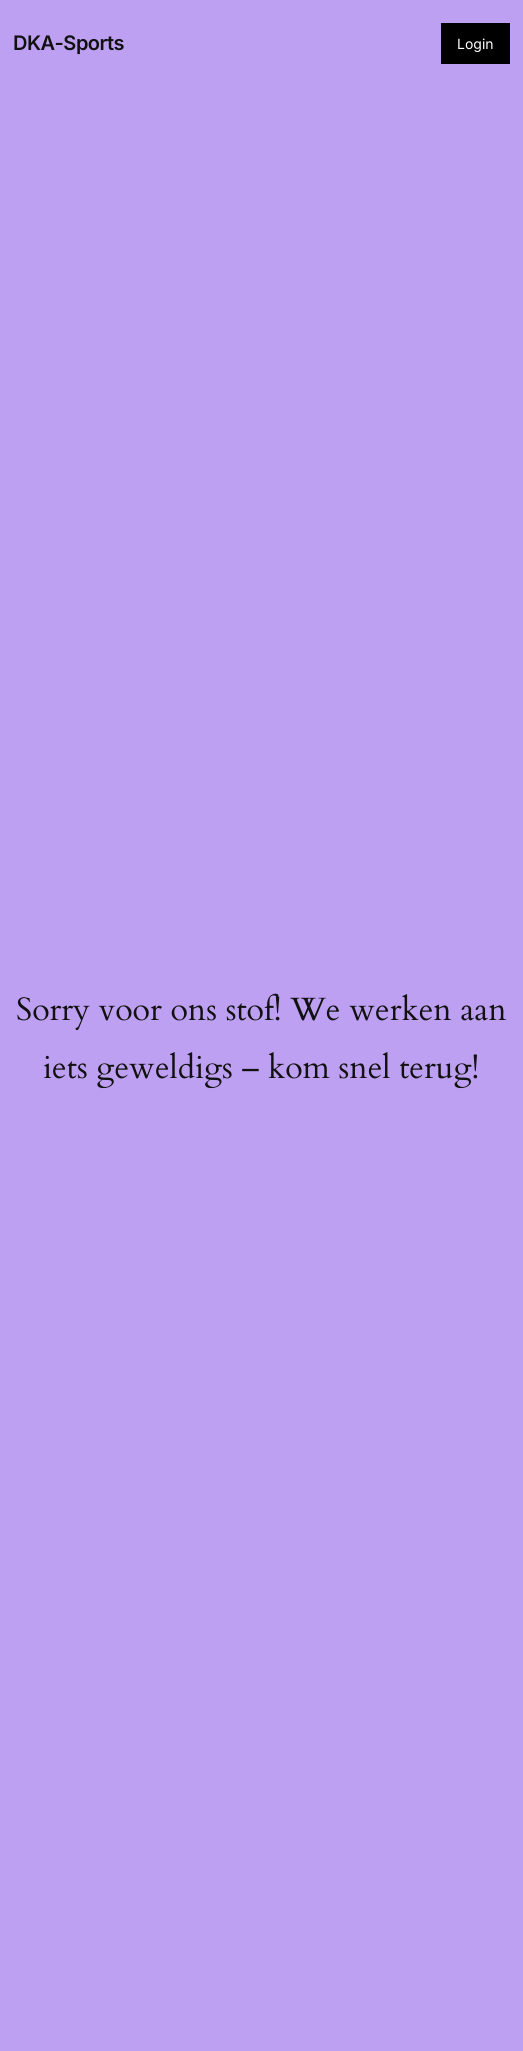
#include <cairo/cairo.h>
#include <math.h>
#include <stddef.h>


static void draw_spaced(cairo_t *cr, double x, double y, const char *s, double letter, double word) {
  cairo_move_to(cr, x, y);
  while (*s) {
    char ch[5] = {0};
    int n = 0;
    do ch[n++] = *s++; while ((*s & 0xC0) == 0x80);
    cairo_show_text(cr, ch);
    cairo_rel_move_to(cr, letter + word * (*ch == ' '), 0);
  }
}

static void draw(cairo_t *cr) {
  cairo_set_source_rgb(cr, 190 / 255.0, 160 / 255.0, 242 / 255.0);
  cairo_paint(cr);
  cairo_set_source_rgb(cr, 0, 0, 0);
  cairo_rectangle(cr, 441, 23, 69, 41);
  cairo_fill(cr);
  cairo_select_font_face(cr, "Inter SemiBold", CAIRO_FONT_SLANT_NORMAL, CAIRO_FONT_WEIGHT_NORMAL);
  cairo_set_font_size(cr, 20);
  cairo_set_source_rgb(cr, 17 / 255.0, 17 / 255.0, 17 / 255.0);
  draw_spaced(cr, 13, 50, "DKA-Sports", -0.5, 0);
  cairo_select_font_face(cr, "Inter", CAIRO_FONT_SLANT_NORMAL, CAIRO_FONT_WEIGHT_NORMAL);
  cairo_set_font_size(cr, 14);
  cairo_set_source_rgb(cr, 1, 1, 1);
  cairo_move_to(cr, 457, 49);
  cairo_show_text(cr, "Login");
  cairo_select_font_face(cr, "Cardo", CAIRO_FONT_SLANT_NORMAL, CAIRO_FONT_WEIGHT_NORMAL);
  cairo_set_font_size(cr, 32.25);
  cairo_set_source_rgb(cr, 17 / 255.0, 17 / 255.0, 17 / 255.0);
  cairo_move_to(cr, 16, 1020);
  cairo_show_text(cr, "Sorry voor ons stof! We werken aan");
  cairo_move_to(cr, 43, 1078);
  cairo_show_text(cr, "iets geweldigs – kom snel terug!");
}

int main(void) {
  cairo_surface_t *surface = cairo_image_surface_create(CAIRO_FORMAT_RGB24, 523, 2051);
  cairo_t *cr = cairo_create(surface);
  cairo_font_options_t *options = cairo_font_options_create();
  cairo_font_options_set_hint_metrics(options, CAIRO_HINT_METRICS_OFF);
  cairo_font_options_set_hint_style(options, CAIRO_HINT_STYLE_NONE);
  cairo_set_font_options(cr, options);
  cairo_set_miter_limit(cr, 4);
  draw(cr);
  cairo_surface_write_to_png(surface, "out.png");
  cairo_font_options_destroy(options);
  cairo_destroy(cr);
  cairo_surface_destroy(surface);
  return 0;
}
